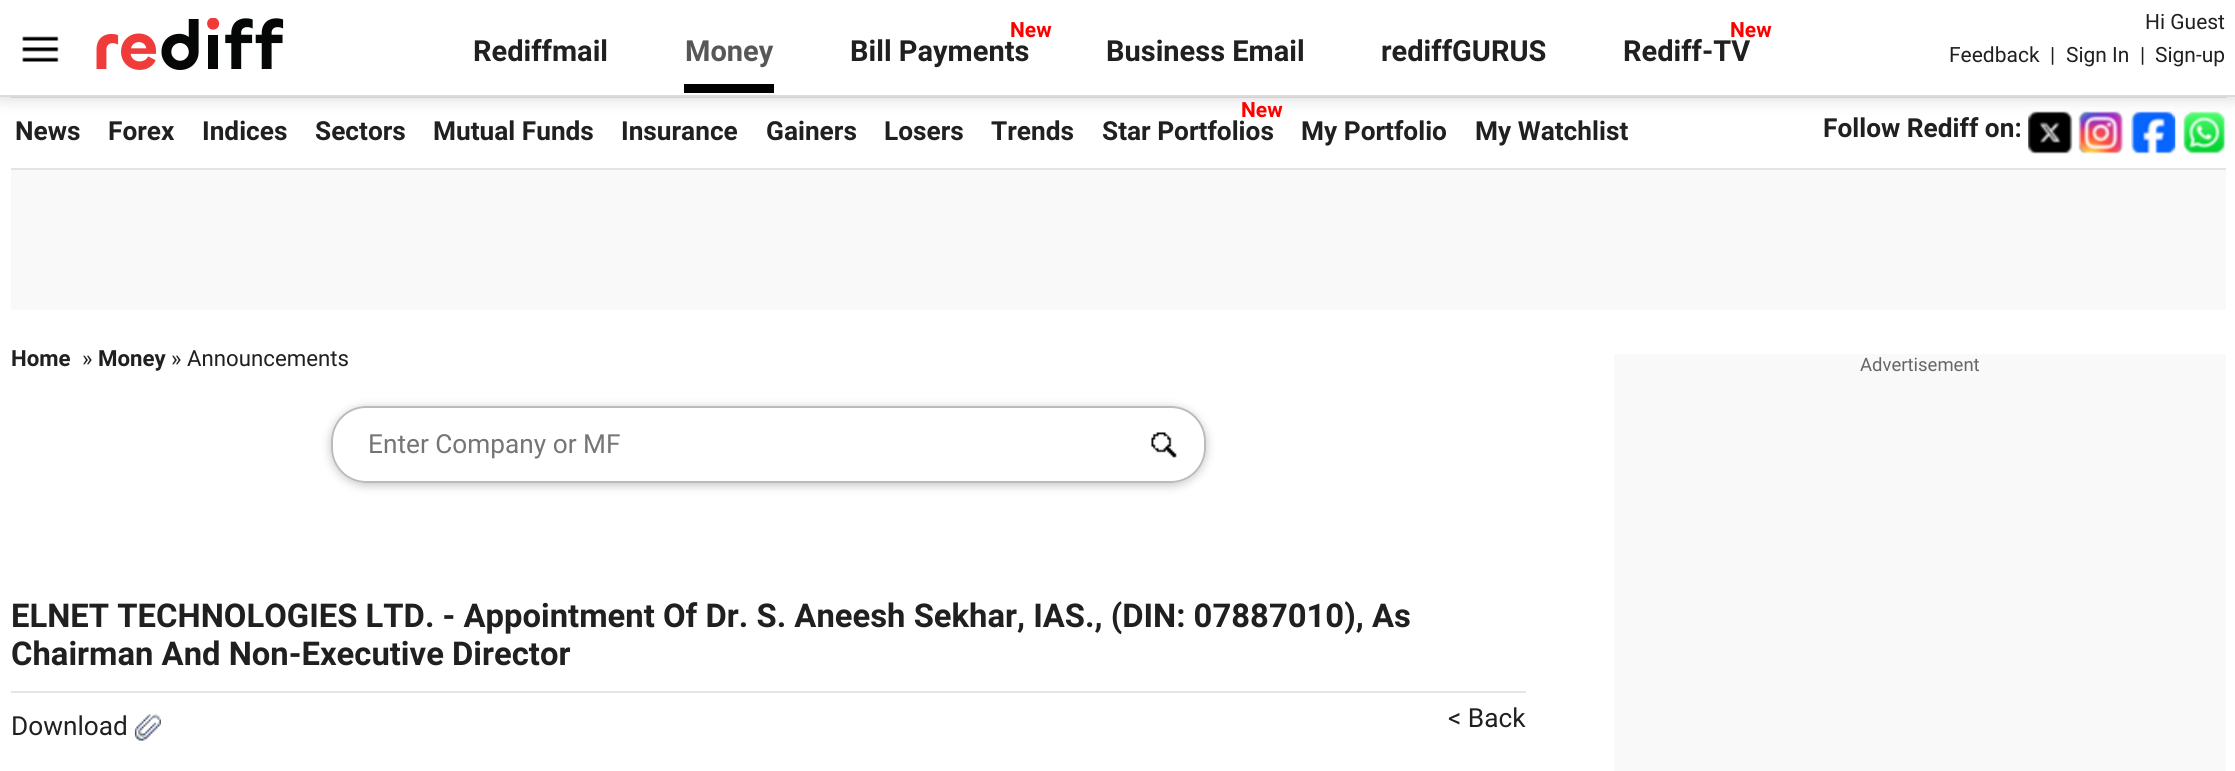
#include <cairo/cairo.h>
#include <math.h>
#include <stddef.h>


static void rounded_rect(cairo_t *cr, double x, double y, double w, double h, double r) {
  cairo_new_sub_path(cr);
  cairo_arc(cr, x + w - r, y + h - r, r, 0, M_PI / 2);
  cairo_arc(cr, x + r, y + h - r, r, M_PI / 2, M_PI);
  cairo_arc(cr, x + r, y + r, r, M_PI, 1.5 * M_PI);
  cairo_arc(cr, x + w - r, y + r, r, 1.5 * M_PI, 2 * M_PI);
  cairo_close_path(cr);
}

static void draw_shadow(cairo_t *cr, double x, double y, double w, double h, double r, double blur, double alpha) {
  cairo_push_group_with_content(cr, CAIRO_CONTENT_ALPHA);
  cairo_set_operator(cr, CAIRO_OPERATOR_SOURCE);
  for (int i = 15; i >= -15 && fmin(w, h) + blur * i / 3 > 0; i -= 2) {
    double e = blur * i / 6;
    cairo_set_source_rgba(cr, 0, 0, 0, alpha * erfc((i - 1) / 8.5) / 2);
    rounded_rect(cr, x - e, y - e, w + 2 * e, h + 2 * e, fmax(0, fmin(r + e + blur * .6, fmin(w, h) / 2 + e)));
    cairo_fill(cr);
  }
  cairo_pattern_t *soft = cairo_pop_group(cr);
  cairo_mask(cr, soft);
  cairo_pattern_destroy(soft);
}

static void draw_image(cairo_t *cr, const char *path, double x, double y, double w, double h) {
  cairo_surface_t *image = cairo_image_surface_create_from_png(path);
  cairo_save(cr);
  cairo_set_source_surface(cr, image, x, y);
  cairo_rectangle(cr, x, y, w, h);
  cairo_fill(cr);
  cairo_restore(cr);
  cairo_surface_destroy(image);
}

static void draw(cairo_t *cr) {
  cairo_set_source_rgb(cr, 1, 1, 1);
  cairo_paint(cr);
  cairo_set_source_rgb(cr, 228 / 255.0, 228 / 255.0, 228 / 255.0);
  cairo_rectangle(cr, 11, 97, 2215, 1);
  cairo_fill(cr);
  draw_image(cr, "images/3.png", 2028, 111, 45, 43);
  draw_image(cr, "images/4.png", 2078, 111, 46, 43);
  draw_image(cr, "images/5.png", 2131, 111, 45, 43);
  draw_image(cr, "images/6.png", 2183, 111, 43, 43);
  cairo_set_source_rgb(cr, 0, 0, 0);
  draw_shadow(cr, 0, 0, 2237, 96, 0, 9, 0.2);
  cairo_set_source_rgb(cr, 1, 1, 1);
  cairo_rectangle(cr, 0, 0, 2235, 95);
  cairo_fill(cr);
  cairo_set_source_rgb(cr, 219 / 255.0, 219 / 255.0, 219 / 255.0);
  cairo_rectangle(cr, 0, 95, 2235, 2);
  cairo_fill(cr);
  draw_image(cr, "images/1.png", 22, 36, 37, 26);
  draw_image(cr, "images/2.png", 96, 18, 188, 52);
  cairo_set_source_rgb(cr, 0, 0, 0);
  cairo_rectangle(cr, 684, 84, 90, 9);
  cairo_fill(cr);
  cairo_set_source_rgb(cr, 228 / 255.0, 228 / 255.0, 228 / 255.0);
  cairo_rectangle(cr, 11, 168, 2215, 2);
  cairo_fill(cr);
  cairo_set_source_rgb(cr, 249 / 255.0, 249 / 255.0, 249 / 255.0);
  cairo_rectangle(cr, 11, 170, 2215, 140);
  cairo_fill(cr);
  cairo_save(cr);
  cairo_set_fill_rule(cr, CAIRO_FILL_RULE_EVEN_ODD);
  cairo_new_path(cr);
  cairo_move_to(cr, 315, 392);
  cairo_line_to(cr, 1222, 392);
  cairo_line_to(cr, 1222, 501);
  cairo_line_to(cr, 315, 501);
  cairo_close_path(cr);
  cairo_move_to(cr, 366, 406);
  cairo_line_to(cr, 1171, 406);
  cairo_curve_to(cr, 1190.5, 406, 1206, 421.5, 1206, 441);
  cairo_line_to(cr, 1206, 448);
  cairo_curve_to(cr, 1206, 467.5, 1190.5, 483, 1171, 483);
  cairo_line_to(cr, 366, 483);
  cairo_curve_to(cr, 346.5, 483, 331, 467.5, 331, 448);
  cairo_line_to(cr, 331, 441);
  cairo_curve_to(cr, 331, 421.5, 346.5, 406, 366, 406);
  cairo_close_path(cr);
  cairo_clip(cr);
  cairo_set_source_rgb(cr, 32 / 255.0, 33 / 255.0, 36 / 255.0);
  draw_shadow(cr, 331, 408, 875, 77, 35, 5, 0.28);
  cairo_restore(cr);
  rounded_rect(cr, 332, 407, 873, 75, 34);
  cairo_set_source_rgb(cr, 187 / 255.0, 187 / 255.0, 187 / 255.0);
  cairo_stroke(cr);
  draw_image(cr, "images/7.png", 1151, 432, 26, 26);
  cairo_set_source_rgb(cr, 229 / 255.0, 229 / 255.0, 229 / 255.0);
  cairo_rectangle(cr, 11, 691, 1515, 2);
  cairo_fill(cr);
  draw_image(cr, "images/8.png", 134, 714, 27, 27);
  cairo_set_source_rgb(cr, 249 / 255.0, 249 / 255.0, 249 / 255.0);
  cairo_rectangle(cr, 1614, 354, 612, 417);
  cairo_fill(cr);
  cairo_select_font_face(cr, "Roboto", CAIRO_FONT_SLANT_NORMAL, CAIRO_FONT_WEIGHT_BOLD);
  cairo_set_font_size(cr, 29);
  cairo_set_source_rgb(cr, 32 / 255.0, 32 / 255.0, 32 / 255.0);
  cairo_move_to(cr, 473, 61);
  cairo_show_text(cr, "Rediffmail");
  cairo_set_source_rgb(cr, 87 / 255.0, 87 / 255.0, 87 / 255.0);
  cairo_move_to(cr, 685, 61);
  cairo_show_text(cr, "Money");
  cairo_set_font_size(cr, 21);
  cairo_set_source_rgb(cr, 1, 0, 0);
  cairo_move_to(cr, 1010, 37);
  cairo_show_text(cr, "New");
  cairo_set_font_size(cr, 29);
  cairo_set_source_rgb(cr, 32 / 255.0, 32 / 255.0, 32 / 255.0);
  cairo_move_to(cr, 850, 61);
  cairo_show_text(cr, "Bill Payments");
  cairo_move_to(cr, 1106, 61);
  cairo_show_text(cr, "Business Email");
  cairo_move_to(cr, 1381, 61);
  cairo_show_text(cr, "rediffGURUS");
  cairo_set_font_size(cr, 21);
  cairo_set_source_rgb(cr, 1, 0, 0);
  cairo_move_to(cr, 1730, 37);
  cairo_show_text(cr, "New");
  cairo_set_font_size(cr, 29);
  cairo_set_source_rgb(cr, 32 / 255.0, 32 / 255.0, 32 / 255.0);
  cairo_move_to(cr, 1623, 61);
  cairo_show_text(cr, "Rediff-TV");
  cairo_select_font_face(cr, "Roboto", CAIRO_FONT_SLANT_NORMAL, CAIRO_FONT_WEIGHT_NORMAL);
  cairo_set_font_size(cr, 21);
  cairo_move_to(cr, 2145, 29);
  cairo_show_text(cr, "Hi Guest");
  cairo_move_to(cr, 1949, 62);
  cairo_show_text(cr, "Feedback");
  cairo_move_to(cr, 2050, 62);
  cairo_show_text(cr, "|");
  cairo_move_to(cr, 2066, 62);
  cairo_show_text(cr, "Sign In");
  cairo_move_to(cr, 2140, 62);
  cairo_show_text(cr, "|");
  cairo_move_to(cr, 2155, 62);
  cairo_show_text(cr, "Sign-up");
  cairo_select_font_face(cr, "Roboto", CAIRO_FONT_SLANT_NORMAL, CAIRO_FONT_WEIGHT_BOLD);
  cairo_set_font_size(cr, 26.25);
  cairo_move_to(cr, 15, 140);
  cairo_show_text(cr, "News");
  cairo_move_to(cr, 108, 140);
  cairo_show_text(cr, "Forex");
  cairo_move_to(cr, 202, 140);
  cairo_show_text(cr, "Indices");
  cairo_move_to(cr, 315, 140);
  cairo_show_text(cr, "Sectors");
  cairo_move_to(cr, 433, 140);
  cairo_show_text(cr, "Mutual Funds");
  cairo_move_to(cr, 621, 140);
  cairo_show_text(cr, "Insurance");
  cairo_move_to(cr, 766, 140);
  cairo_show_text(cr, "Gainers");
  cairo_move_to(cr, 884, 140);
  cairo_show_text(cr, "Losers");
  cairo_move_to(cr, 991, 140);
  cairo_show_text(cr, "Trends");
  cairo_set_font_size(cr, 21);
  cairo_set_source_rgb(cr, 1, 0, 0);
  cairo_move_to(cr, 1241, 117);
  cairo_show_text(cr, "New");
  cairo_set_font_size(cr, 26.25);
  cairo_set_source_rgb(cr, 32 / 255.0, 32 / 255.0, 32 / 255.0);
  cairo_move_to(cr, 1102, 140);
  cairo_show_text(cr, "Star Portfolios");
  cairo_move_to(cr, 1301, 140);
  cairo_show_text(cr, "My Portfolio");
  cairo_move_to(cr, 1475, 140);
  cairo_show_text(cr, "My Watchlist");
  cairo_move_to(cr, 1823, 137);
  cairo_show_text(cr, "Follow Rediff on:");
  cairo_set_font_size(cr, 22.25);
  cairo_move_to(cr, 11, 366);
  cairo_show_text(cr, "Home");
  cairo_select_font_face(cr, "Roboto", CAIRO_FONT_SLANT_NORMAL, CAIRO_FONT_WEIGHT_NORMAL);
  cairo_move_to(cr, 82, 366);
  cairo_show_text(cr, "»");
  cairo_select_font_face(cr, "Roboto", CAIRO_FONT_SLANT_NORMAL, CAIRO_FONT_WEIGHT_BOLD);
  cairo_move_to(cr, 98, 366);
  cairo_show_text(cr, "Money");
  cairo_select_font_face(cr, "Roboto", CAIRO_FONT_SLANT_NORMAL, CAIRO_FONT_WEIGHT_NORMAL);
  cairo_move_to(cr, 171, 366);
  cairo_show_text(cr, "» Announcements");
  cairo_set_font_size(cr, 26.25);
  cairo_set_source_rgb(cr, 117 / 255.0, 117 / 255.0, 117 / 255.0);
  cairo_move_to(cr, 368, 453);
  cairo_show_text(cr, "Enter Company or MF");
  cairo_select_font_face(cr, "Roboto", CAIRO_FONT_SLANT_NORMAL, CAIRO_FONT_WEIGHT_BOLD);
  cairo_set_font_size(cr, 32.8);
  cairo_set_source_rgb(cr, 32 / 255.0, 32 / 255.0, 32 / 255.0);
  cairo_move_to(cr, 11, 627);
  cairo_show_text(cr, "ELNET TECHNOLOGIES LTD. - Appointment Of Dr. S. Aneesh Sekhar, IAS., (DIN: 07887010), As");
  cairo_move_to(cr, 11, 665);
  cairo_show_text(cr, "Chairman And Non-Executive Director");
  cairo_select_font_face(cr, "Roboto", CAIRO_FONT_SLANT_NORMAL, CAIRO_FONT_WEIGHT_NORMAL);
  cairo_set_font_size(cr, 26.25);
  cairo_move_to(cr, 11, 735);
  cairo_show_text(cr, "Download");
  cairo_move_to(cr, 1448, 727);
  cairo_show_text(cr, "< Back");
  cairo_set_font_size(cr, 18.5);
  cairo_set_source_rgb(cr, 102 / 255.0, 102 / 255.0, 102 / 255.0);
  cairo_move_to(cr, 1860, 371);
  cairo_show_text(cr, "Advertisement");
}

int main(void) {
  cairo_surface_t *surface = cairo_image_surface_create(CAIRO_FORMAT_RGB24, 2235, 771);
  cairo_t *cr = cairo_create(surface);
  cairo_font_options_t *options = cairo_font_options_create();
  cairo_font_options_set_hint_metrics(options, CAIRO_HINT_METRICS_OFF);
  cairo_font_options_set_hint_style(options, CAIRO_HINT_STYLE_NONE);
  cairo_set_font_options(cr, options);
  cairo_set_miter_limit(cr, 4);
  draw(cr);
  cairo_surface_write_to_png(surface, "out.png");
  cairo_font_options_destroy(options);
  cairo_destroy(cr);
  cairo_surface_destroy(surface);
  return 0;
}
